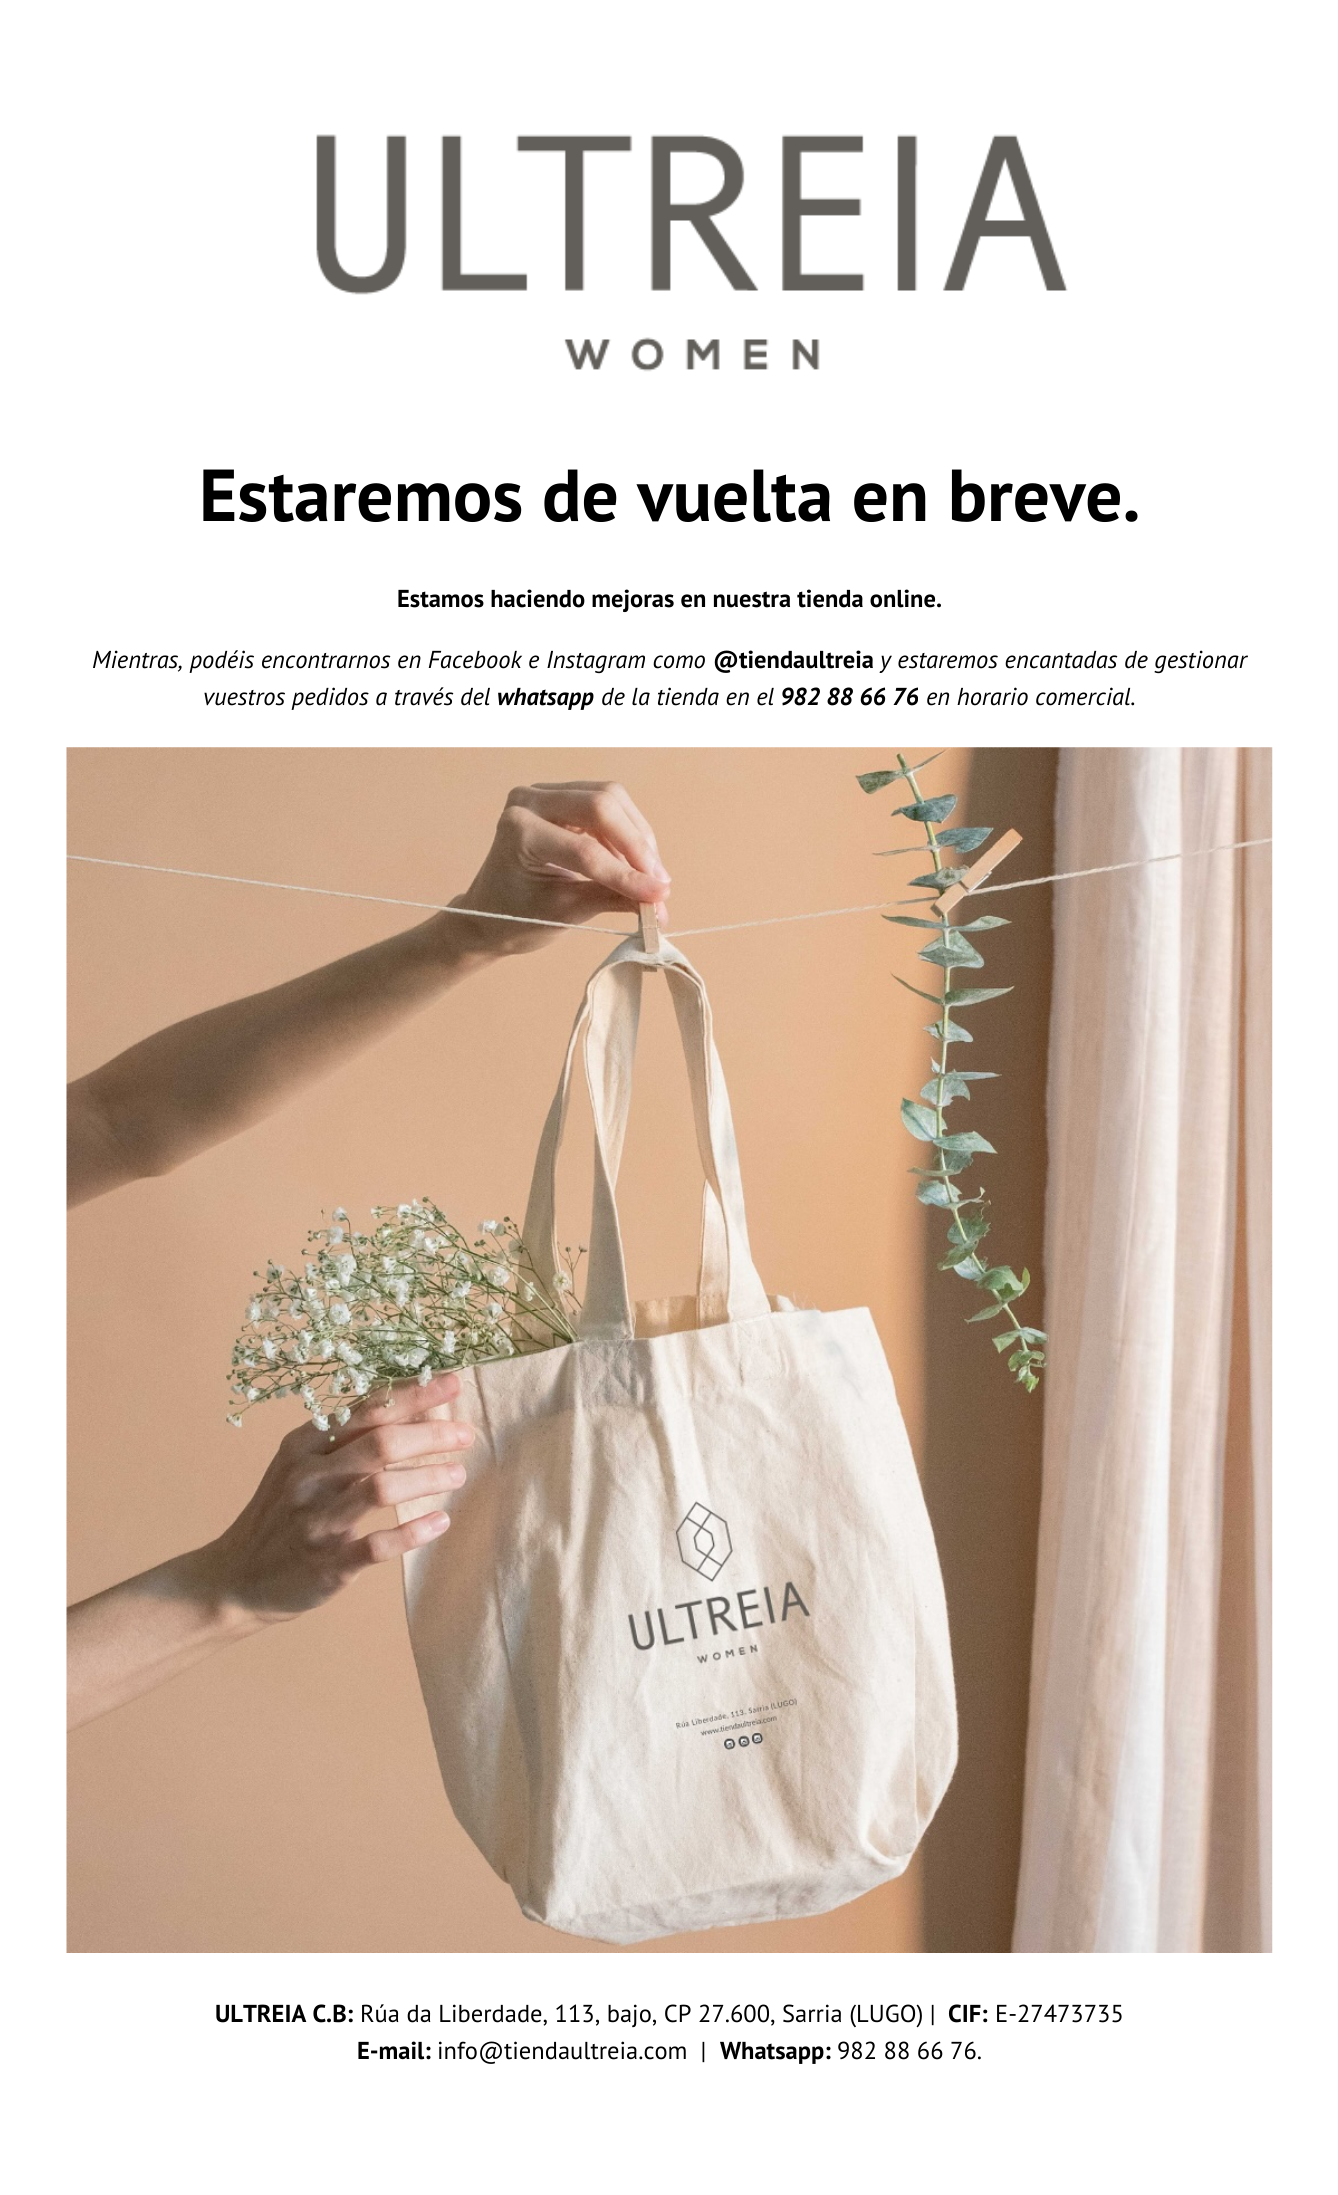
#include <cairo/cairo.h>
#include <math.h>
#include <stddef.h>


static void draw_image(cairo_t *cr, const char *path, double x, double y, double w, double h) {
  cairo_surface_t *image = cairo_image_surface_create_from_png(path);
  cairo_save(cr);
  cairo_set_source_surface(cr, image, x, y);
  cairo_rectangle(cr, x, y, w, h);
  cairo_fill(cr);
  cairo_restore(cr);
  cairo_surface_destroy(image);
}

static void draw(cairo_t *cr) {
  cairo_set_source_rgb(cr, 1, 1, 1);
  cairo_paint(cr);
  draw_image(cr, "images/1.png", 316, 134, 752, 238);
  draw_image(cr, "images/2.png", 66, 747, 1207, 1206);
  cairo_select_font_face(cr, "PT Sans", CAIRO_FONT_SLANT_NORMAL, CAIRO_FONT_WEIGHT_BOLD);
  cairo_set_font_size(cr, 73.5);
  cairo_set_source_rgb(cr, 0, 0, 0);
  cairo_move_to(cr, 199, 521);
  cairo_show_text(cr, "Estaremos de vuelta en breve.");
  cairo_set_font_size(cr, 24.5);
  cairo_move_to(cr, 397, 607);
  cairo_show_text(cr, "Estamos haciendo mejoras en nuestra tienda online.");
  cairo_select_font_face(cr, "PT Sans", CAIRO_FONT_SLANT_ITALIC, CAIRO_FONT_WEIGHT_NORMAL);
  cairo_move_to(cr, 92, 668);
  cairo_show_text(cr, "Mientras, podéis encontrarnos en Facebook e Instagram como");
  cairo_select_font_face(cr, "PT Sans", CAIRO_FONT_SLANT_NORMAL, CAIRO_FONT_WEIGHT_BOLD);
  cairo_move_to(cr, 713, 668);
  cairo_show_text(cr, "@tiendaultreia");
  cairo_select_font_face(cr, "PT Sans", CAIRO_FONT_SLANT_ITALIC, CAIRO_FONT_WEIGHT_NORMAL);
  cairo_move_to(cr, 880, 668);
  cairo_show_text(cr, "y estaremos encantadas de gestionar");
  cairo_move_to(cr, 203, 705);
  cairo_show_text(cr, "vuestros pedidos a través del");
  cairo_select_font_face(cr, "PT Sans", CAIRO_FONT_SLANT_ITALIC, CAIRO_FONT_WEIGHT_BOLD);
  cairo_move_to(cr, 497, 705);
  cairo_show_text(cr, "whatsapp");
  cairo_select_font_face(cr, "PT Sans", CAIRO_FONT_SLANT_ITALIC, CAIRO_FONT_WEIGHT_NORMAL);
  cairo_move_to(cr, 601, 705);
  cairo_show_text(cr, "de la tienda en el");
  cairo_select_font_face(cr, "PT Sans", CAIRO_FONT_SLANT_ITALIC, CAIRO_FONT_WEIGHT_BOLD);
  cairo_move_to(cr, 780, 705);
  cairo_show_text(cr, "982 88 66 76");
  cairo_select_font_face(cr, "PT Sans", CAIRO_FONT_SLANT_ITALIC, CAIRO_FONT_WEIGHT_NORMAL);
  cairo_move_to(cr, 926, 705);
  cairo_show_text(cr, "en horario comercial.");
  cairo_select_font_face(cr, "PT Sans", CAIRO_FONT_SLANT_NORMAL, CAIRO_FONT_WEIGHT_BOLD);
  cairo_move_to(cr, 215, 2022);
  cairo_show_text(cr, "ULTREIA C.B:");
  cairo_select_font_face(cr, "PT Sans", CAIRO_FONT_SLANT_NORMAL, CAIRO_FONT_WEIGHT_NORMAL);
  cairo_move_to(cr, 360, 2022);
  cairo_show_text(cr, "Rúa da Liberdade, 113, bajo, CP 27.600, Sarria (LUGO) |");
  cairo_select_font_face(cr, "PT Sans", CAIRO_FONT_SLANT_NORMAL, CAIRO_FONT_WEIGHT_BOLD);
  cairo_move_to(cr, 948, 2022);
  cairo_show_text(cr, "CIF:");
  cairo_select_font_face(cr, "PT Sans", CAIRO_FONT_SLANT_NORMAL, CAIRO_FONT_WEIGHT_NORMAL);
  cairo_move_to(cr, 995, 2022);
  cairo_show_text(cr, "E-27473735");
  cairo_select_font_face(cr, "PT Sans", CAIRO_FONT_SLANT_NORMAL, CAIRO_FONT_WEIGHT_BOLD);
  cairo_move_to(cr, 357, 2059);
  cairo_show_text(cr, "E-mail:");
  cairo_select_font_face(cr, "PT Sans", CAIRO_FONT_SLANT_NORMAL, CAIRO_FONT_WEIGHT_NORMAL);
  cairo_move_to(cr, 437, 2059);
  cairo_show_text(cr, "info@tiendaultreia.com  |");
  cairo_select_font_face(cr, "PT Sans", CAIRO_FONT_SLANT_NORMAL, CAIRO_FONT_WEIGHT_BOLD);
  cairo_move_to(cr, 720, 2059);
  cairo_show_text(cr, "Whatsapp:");
  cairo_select_font_face(cr, "PT Sans", CAIRO_FONT_SLANT_NORMAL, CAIRO_FONT_WEIGHT_NORMAL);
  cairo_move_to(cr, 837, 2059);
  cairo_show_text(cr, "982 88 66 76.");
}

int main(void) {
  cairo_surface_t *surface = cairo_image_surface_create(CAIRO_FORMAT_RGB24, 1338, 2195);
  cairo_t *cr = cairo_create(surface);
  cairo_font_options_t *options = cairo_font_options_create();
  cairo_font_options_set_hint_metrics(options, CAIRO_HINT_METRICS_OFF);
  cairo_font_options_set_hint_style(options, CAIRO_HINT_STYLE_NONE);
  cairo_set_font_options(cr, options);
  cairo_set_miter_limit(cr, 4);
  draw(cr);
  cairo_surface_write_to_png(surface, "out.png");
  cairo_font_options_destroy(options);
  cairo_destroy(cr);
  cairo_surface_destroy(surface);
  return 0;
}
